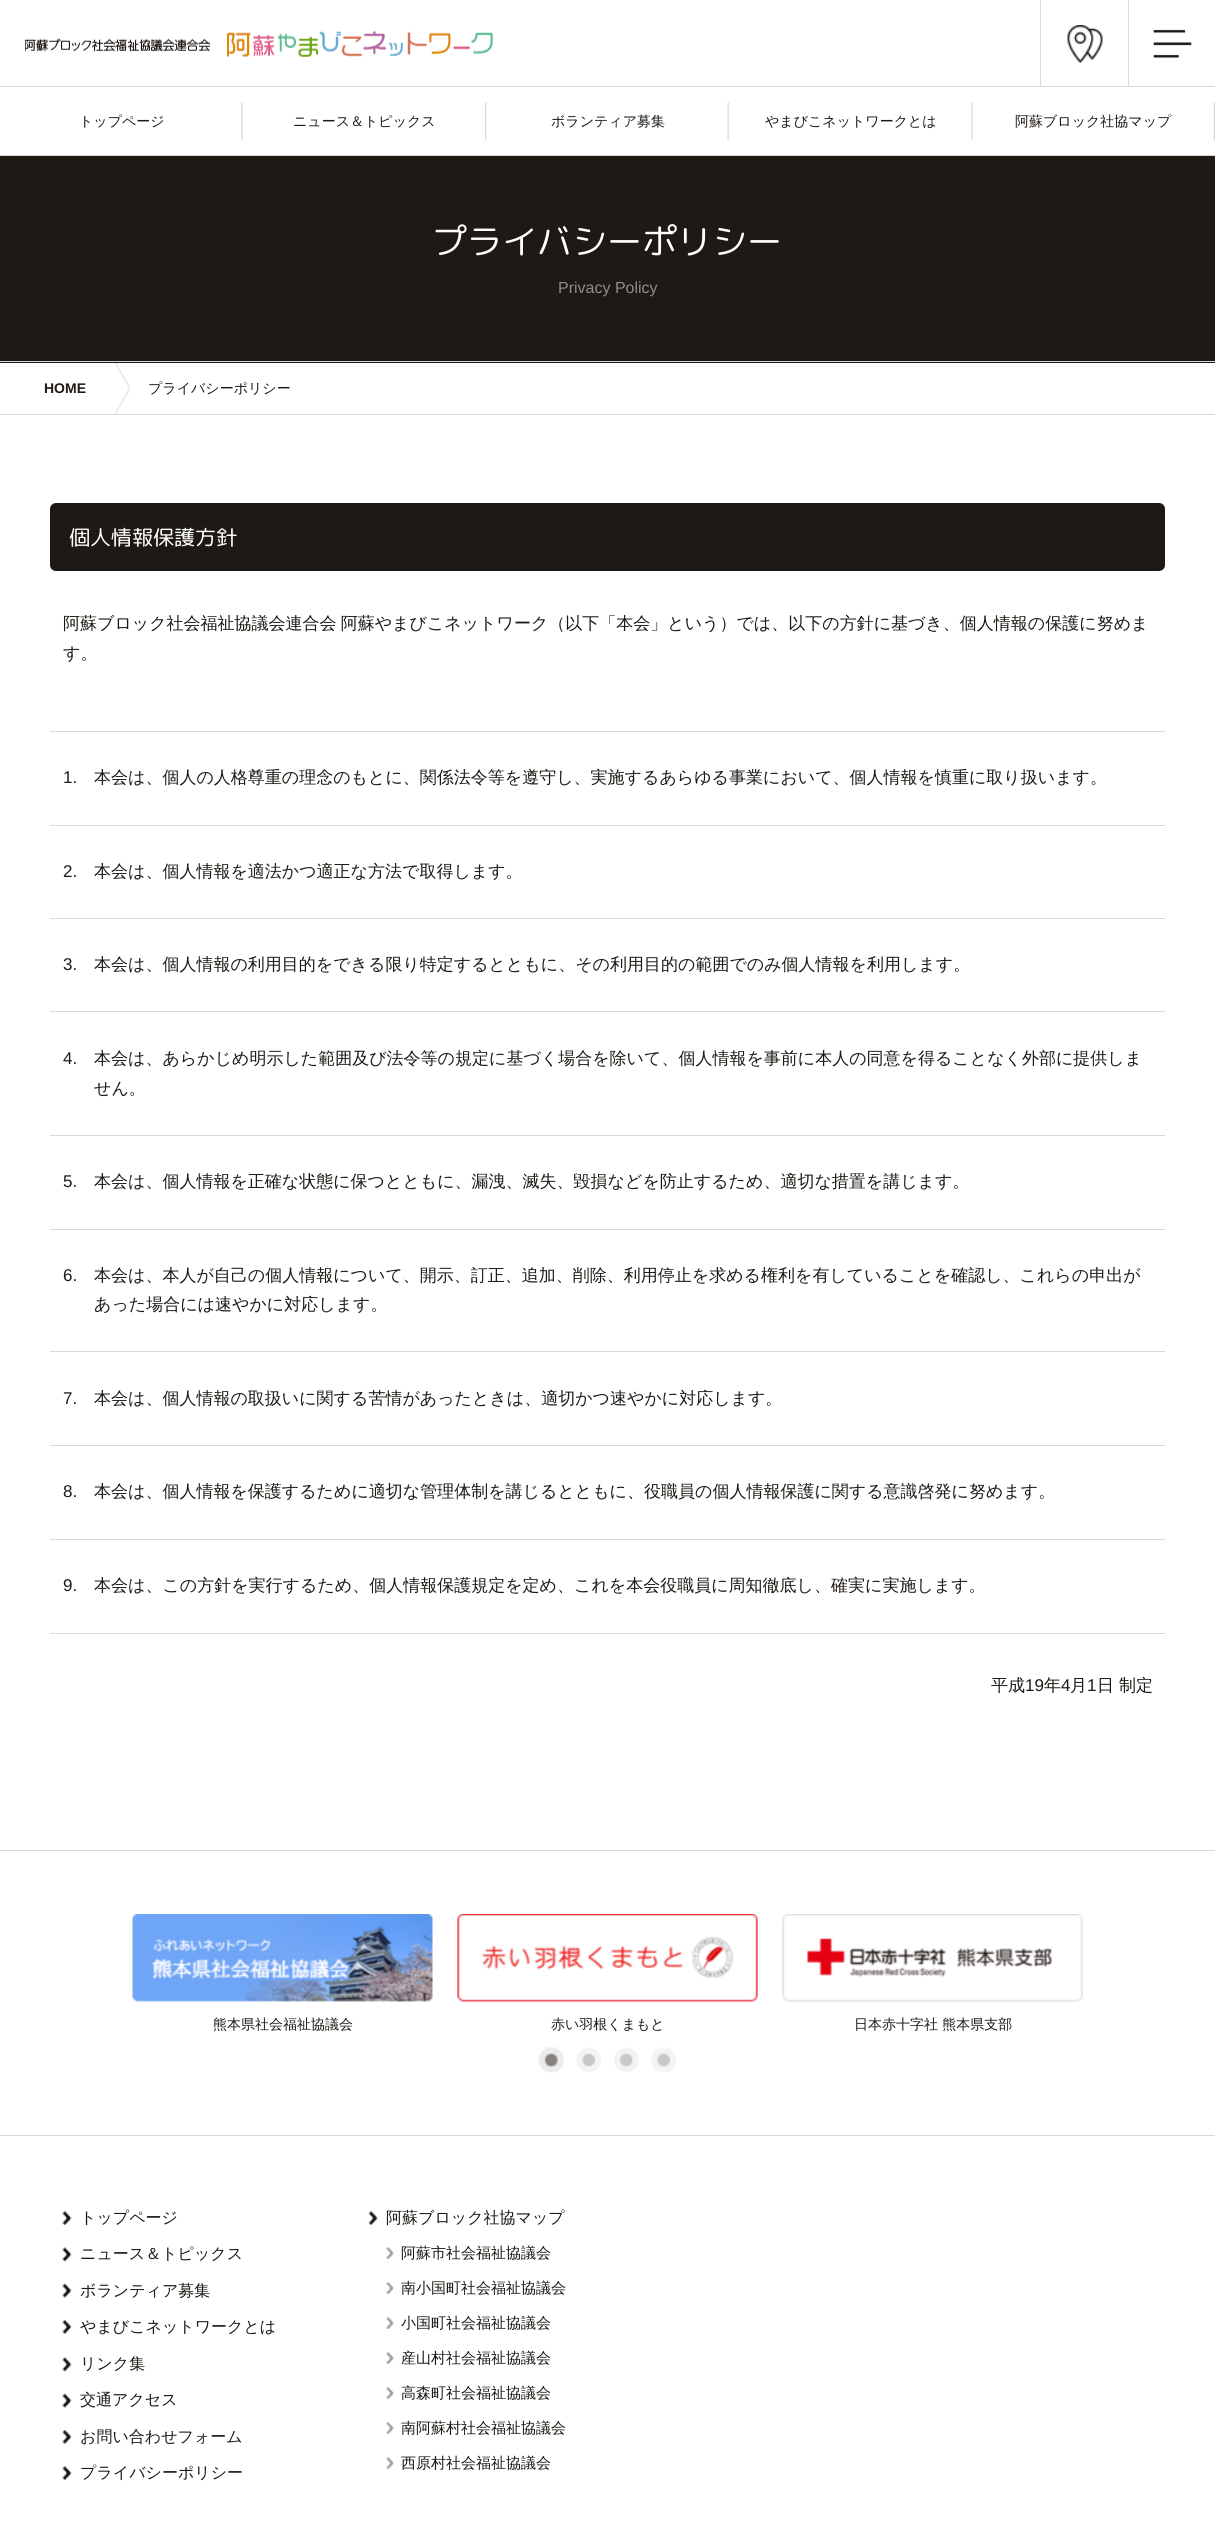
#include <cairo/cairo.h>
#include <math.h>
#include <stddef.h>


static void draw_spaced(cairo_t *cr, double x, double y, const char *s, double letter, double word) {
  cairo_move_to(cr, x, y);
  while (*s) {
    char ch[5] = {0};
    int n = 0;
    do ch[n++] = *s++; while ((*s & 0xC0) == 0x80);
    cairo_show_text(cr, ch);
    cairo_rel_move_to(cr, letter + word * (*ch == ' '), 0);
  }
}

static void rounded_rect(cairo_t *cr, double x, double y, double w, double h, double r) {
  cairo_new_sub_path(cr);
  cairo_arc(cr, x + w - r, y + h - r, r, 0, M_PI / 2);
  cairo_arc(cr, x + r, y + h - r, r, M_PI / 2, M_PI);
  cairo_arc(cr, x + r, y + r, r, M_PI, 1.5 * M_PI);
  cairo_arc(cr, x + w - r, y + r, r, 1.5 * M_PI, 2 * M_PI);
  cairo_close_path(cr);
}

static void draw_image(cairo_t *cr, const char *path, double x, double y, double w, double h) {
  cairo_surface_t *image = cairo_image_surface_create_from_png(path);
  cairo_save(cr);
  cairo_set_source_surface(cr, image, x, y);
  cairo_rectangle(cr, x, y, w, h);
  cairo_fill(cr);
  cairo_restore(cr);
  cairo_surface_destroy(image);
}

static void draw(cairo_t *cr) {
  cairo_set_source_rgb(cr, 1, 1, 1);
  cairo_paint(cr);
  cairo_set_source_rgb(cr, 220 / 255.0, 215 / 255.0, 215 / 255.0);
  cairo_rectangle(cr, 0, 86, 1215, 1);
  cairo_fill(cr);
  draw_image(cr, "images/1.png", 25, 30, 468, 27);
  cairo_rectangle(cr, 1040, 0, 1, 86);
  cairo_fill(cr);
  draw_image(cr, "images/2.png", 1067, 25, 36, 38);
  cairo_rectangle(cr, 1128, 0, 1, 86);
  cairo_fill(cr);
  draw_image(cr, "images/3.png", 1153, 29, 39, 29);
  cairo_rectangle(cr, 0, 155, 1215, 1);
  cairo_fill(cr);
  draw_image(cr, "images/4.png", 241, 102, 2, 38);
  draw_image(cr, "images/5.png", 485, 102, 2, 39);
  draw_image(cr, "images/6.png", 727, 102, 2, 38);
  draw_image(cr, "images/7.png", 971, 102, 2, 38);
  draw_image(cr, "images/8.png", 1213, 102, 2, 39);
  cairo_set_source_rgb(cr, 30 / 255.0, 25 / 255.0, 20 / 255.0);
  cairo_rectangle(cr, 0, 156, 1215, 207);
  cairo_fill(cr);
  cairo_set_source_rgb(cr, 220 / 255.0, 215 / 255.0, 215 / 255.0);
  cairo_rectangle(cr, 0, 361, 1215, 1);
  cairo_fill(cr);
  cairo_rectangle(cr, 0, 414, 1215, 1);
  cairo_fill(cr);
  draw_image(cr, "images/9.png", 114, 363, 16, 51);
  cairo_set_source_rgb(cr, 30 / 255.0, 25 / 255.0, 20 / 255.0);
  rounded_rect(cr, 50, 503, 1115, 68, 6);
  cairo_fill(cr);
  cairo_set_source_rgb(cr, 220 / 255.0, 215 / 255.0, 215 / 255.0);
  cairo_rectangle(cr, 50, 731, 1115, 1);
  cairo_fill(cr);
  cairo_rectangle(cr, 50, 825, 1115, 1);
  cairo_fill(cr);
  cairo_rectangle(cr, 50, 918, 1115, 1);
  cairo_fill(cr);
  cairo_rectangle(cr, 50, 1011, 1115, 1);
  cairo_fill(cr);
  cairo_rectangle(cr, 50, 1135, 1115, 1);
  cairo_fill(cr);
  cairo_rectangle(cr, 50, 1229, 1115, 1);
  cairo_fill(cr);
  cairo_rectangle(cr, 50, 1351, 1115, 1);
  cairo_fill(cr);
  cairo_rectangle(cr, 50, 1445, 1115, 1);
  cairo_fill(cr);
  cairo_rectangle(cr, 50, 1539, 1115, 1);
  cairo_fill(cr);
  cairo_rectangle(cr, 50, 1633, 1115, 1);
  cairo_fill(cr);
  cairo_rectangle(cr, 0, 1850, 1215, 1);
  cairo_fill(cr);
  draw_image(cr, "images/10.png", 132, 1914, 301, 88);
  draw_image(cr, "images/11.png", 457, 1914, 301, 88);
  draw_image(cr, "images/12.png", 782, 1914, 301, 88);
  draw_image(cr, "images/13.png", 539, 2047, 25, 25);
  draw_image(cr, "images/14.png", 538, 2047, 26, 26);
  draw_image(cr, "images/15.png", 576, 2047, 25, 25);
  draw_image(cr, "images/13.png", 614, 2047, 25, 25);
  draw_image(cr, "images/15.png", 651, 2047, 25, 25);
  cairo_rectangle(cr, 0, 2135, 1215, 1);
  cairo_fill(cr);
  draw_image(cr, "images/16.png", 62, 2211, 10, 14);
  draw_image(cr, "images/17.png", 62, 2247, 10, 15);
  draw_image(cr, "images/18.png", 62, 2283, 10, 15);
  draw_image(cr, "images/19.png", 62, 2320, 10, 14);
  draw_image(cr, "images/17.png", 62, 2357, 10, 15);
  draw_image(cr, "images/18.png", 62, 2393, 10, 15);
  draw_image(cr, "images/19.png", 62, 2430, 10, 14);
  draw_image(cr, "images/16.png", 62, 2466, 10, 14);
  draw_image(cr, "images/20.png", 368, 2211, 10, 14);
  draw_image(cr, "images/21.png", 386, 2247, 8, 12);
  draw_image(cr, "images/21.png", 386, 2282, 8, 12);
  draw_image(cr, "images/21.png", 386, 2317, 8, 12);
  draw_image(cr, "images/21.png", 386, 2352, 8, 12);
  draw_image(cr, "images/21.png", 386, 2387, 8, 12);
  draw_image(cr, "images/22.png", 386, 2422, 8, 12);
  draw_image(cr, "images/21.png", 386, 2457, 8, 12);
  cairo_select_font_face(cr, "WenQuanYi Zen Hei Medium", CAIRO_FONT_SLANT_NORMAL, CAIRO_FONT_WEIGHT_NORMAL);
  cairo_set_font_size(cr, 14);
  cairo_set_source_rgb(cr, 30 / 255.0, 25 / 255.0, 20 / 255.0);
  cairo_move_to(cr, 79, 126);
  cairo_show_text(cr, "トップページ");
  cairo_move_to(cr, 293, 126);
  cairo_show_text(cr, "ニュース＆トピックス");
  cairo_move_to(cr, 551, 126);
  cairo_show_text(cr, "ボランティア募集");
  cairo_move_to(cr, 765, 126);
  cairo_show_text(cr, "やまびこネットワークとは");
  cairo_move_to(cr, 1015, 126);
  cairo_show_text(cr, "阿蘇ブロック社協マップ");
  cairo_select_font_face(cr, "Rounded Mplus 1c", CAIRO_FONT_SLANT_NORMAL, CAIRO_FONT_WEIGHT_NORMAL);
  cairo_set_font_size(cr, 35);
  cairo_set_source_rgb(cr, 1, 1, 1);
  cairo_move_to(cr, 432, 254);
  cairo_show_text(cr, "プライバシーポリシー");
  cairo_select_font_face(cr, "Liberation Sans", CAIRO_FONT_SLANT_NORMAL, CAIRO_FONT_WEIGHT_NORMAL);
  cairo_set_font_size(cr, 16);
  cairo_set_source_rgb(cr, 143 / 255.0, 140 / 255.0, 138 / 255.0);
  cairo_move_to(cr, 558, 293);
  cairo_show_text(cr, "Privacy Policy");
  cairo_select_font_face(cr, "Liberation Sans", CAIRO_FONT_SLANT_NORMAL, CAIRO_FONT_WEIGHT_BOLD);
  cairo_set_font_size(cr, 14);
  cairo_set_source_rgb(cr, 30 / 255.0, 25 / 255.0, 20 / 255.0);
  cairo_move_to(cr, 44, 393);
  cairo_show_text(cr, "HOME");
  cairo_select_font_face(cr, "WenQuanYi Zen Hei Medium", CAIRO_FONT_SLANT_NORMAL, CAIRO_FONT_WEIGHT_NORMAL);
  cairo_move_to(cr, 148, 393);
  cairo_show_text(cr, "プライバシーポリシー");
  cairo_select_font_face(cr, "Rounded Mplus 1c", CAIRO_FONT_SLANT_NORMAL, CAIRO_FONT_WEIGHT_NORMAL);
  cairo_set_font_size(cr, 21);
  cairo_set_source_rgb(cr, 1, 1, 1);
  cairo_move_to(cr, 69, 545);
  cairo_show_text(cr, "個人情報保護方針");
  cairo_select_font_face(cr, "WenQuanYi Zen Hei Medium", CAIRO_FONT_SLANT_NORMAL, CAIRO_FONT_WEIGHT_NORMAL);
  cairo_set_font_size(cr, 17);
  cairo_set_source_rgb(cr, 30 / 255.0, 25 / 255.0, 20 / 255.0);
  draw_spaced(cr, 63, 629, "阿蘇ブロック社会福祉協議会連合会 阿蘇やまびこネットワーク（以下「本会」という）では、以下の方針に基づき、個人情報の保護に努めま", 0, -1);
  cairo_move_to(cr, 63, 659);
  cairo_show_text(cr, "す。");
  cairo_select_font_face(cr, "Liberation Sans", CAIRO_FONT_SLANT_NORMAL, CAIRO_FONT_WEIGHT_NORMAL);
  cairo_move_to(cr, 63, 783);
  cairo_show_text(cr, "1.");
  cairo_select_font_face(cr, "WenQuanYi Zen Hei Medium", CAIRO_FONT_SLANT_NORMAL, CAIRO_FONT_WEIGHT_NORMAL);
  cairo_move_to(cr, 94, 783);
  cairo_show_text(cr, "本会は、個人の人格尊重の理念のもとに、関係法令等を遵守し、実施するあらゆる事業において、個人情報を慎重に取り扱います。");
  cairo_select_font_face(cr, "Liberation Sans", CAIRO_FONT_SLANT_NORMAL, CAIRO_FONT_WEIGHT_NORMAL);
  cairo_move_to(cr, 63, 877);
  cairo_show_text(cr, "2.");
  cairo_select_font_face(cr, "WenQuanYi Zen Hei Medium", CAIRO_FONT_SLANT_NORMAL, CAIRO_FONT_WEIGHT_NORMAL);
  cairo_move_to(cr, 94, 877);
  cairo_show_text(cr, "本会は、個人情報を適法かつ適正な方法で取得します。");
  cairo_select_font_face(cr, "Liberation Sans", CAIRO_FONT_SLANT_NORMAL, CAIRO_FONT_WEIGHT_NORMAL);
  cairo_move_to(cr, 63, 970);
  cairo_show_text(cr, "3.");
  cairo_select_font_face(cr, "WenQuanYi Zen Hei Medium", CAIRO_FONT_SLANT_NORMAL, CAIRO_FONT_WEIGHT_NORMAL);
  cairo_move_to(cr, 94, 970);
  cairo_show_text(cr, "本会は、個人情報の利用目的をできる限り特定するとともに、その利用目的の範囲でのみ個人情報を利用します。");
  cairo_select_font_face(cr, "Liberation Sans", CAIRO_FONT_SLANT_NORMAL, CAIRO_FONT_WEIGHT_NORMAL);
  cairo_move_to(cr, 63, 1064);
  cairo_show_text(cr, "4.");
  cairo_select_font_face(cr, "WenQuanYi Zen Hei Medium", CAIRO_FONT_SLANT_NORMAL, CAIRO_FONT_WEIGHT_NORMAL);
  cairo_move_to(cr, 94, 1064);
  cairo_show_text(cr, "本会は、あらかじめ明示した範囲及び法令等の規定に基づく場合を除いて、個人情報を事前に本人の同意を得ることなく外部に提供しま");
  cairo_move_to(cr, 94, 1094);
  cairo_show_text(cr, "せん。");
  cairo_select_font_face(cr, "Liberation Sans", CAIRO_FONT_SLANT_NORMAL, CAIRO_FONT_WEIGHT_NORMAL);
  cairo_move_to(cr, 63, 1187);
  cairo_show_text(cr, "5.");
  cairo_select_font_face(cr, "WenQuanYi Zen Hei Medium", CAIRO_FONT_SLANT_NORMAL, CAIRO_FONT_WEIGHT_NORMAL);
  cairo_move_to(cr, 94, 1187);
  cairo_show_text(cr, "本会は、個人情報を正確な状態に保つとともに、漏洩、滅失、毀損などを防止するため、適切な措置を講じます。");
  cairo_select_font_face(cr, "Liberation Sans", CAIRO_FONT_SLANT_NORMAL, CAIRO_FONT_WEIGHT_NORMAL);
  cairo_move_to(cr, 63, 1281);
  cairo_show_text(cr, "6.");
  cairo_select_font_face(cr, "WenQuanYi Zen Hei Medium", CAIRO_FONT_SLANT_NORMAL, CAIRO_FONT_WEIGHT_NORMAL);
  cairo_move_to(cr, 94, 1281);
  cairo_show_text(cr, "本会は、本人が自己の個人情報について、開示、訂正、追加、削除、利用停止を求める権利を有していることを確認し、これらの申出が");
  cairo_move_to(cr, 94, 1310);
  cairo_show_text(cr, "あった場合には速やかに対応します。");
  cairo_select_font_face(cr, "Liberation Sans", CAIRO_FONT_SLANT_NORMAL, CAIRO_FONT_WEIGHT_NORMAL);
  cairo_move_to(cr, 63, 1404);
  cairo_show_text(cr, "7.");
  cairo_select_font_face(cr, "WenQuanYi Zen Hei Medium", CAIRO_FONT_SLANT_NORMAL, CAIRO_FONT_WEIGHT_NORMAL);
  cairo_move_to(cr, 94, 1404);
  cairo_show_text(cr, "本会は、個人情報の取扱いに関する苦情があったときは、適切かつ速やかに対応します。");
  cairo_select_font_face(cr, "Liberation Sans", CAIRO_FONT_SLANT_NORMAL, CAIRO_FONT_WEIGHT_NORMAL);
  cairo_move_to(cr, 63, 1497);
  cairo_show_text(cr, "8.");
  cairo_select_font_face(cr, "WenQuanYi Zen Hei Medium", CAIRO_FONT_SLANT_NORMAL, CAIRO_FONT_WEIGHT_NORMAL);
  cairo_move_to(cr, 94, 1497);
  cairo_show_text(cr, "本会は、個人情報を保護するために適切な管理体制を講じるとともに、役職員の個人情報保護に関する意識啓発に努めます。");
  cairo_select_font_face(cr, "Liberation Sans", CAIRO_FONT_SLANT_NORMAL, CAIRO_FONT_WEIGHT_NORMAL);
  cairo_move_to(cr, 63, 1591);
  cairo_show_text(cr, "9.");
  cairo_select_font_face(cr, "WenQuanYi Zen Hei Medium", CAIRO_FONT_SLANT_NORMAL, CAIRO_FONT_WEIGHT_NORMAL);
  cairo_move_to(cr, 94, 1591);
  cairo_show_text(cr, "本会は、この方針を実行するため、個人情報保護規定を定め、これを本会役職員に周知徹底し、確実に実施します。");
  cairo_move_to(cr, 991, 1691);
  cairo_show_text(cr, "平成");
  cairo_select_font_face(cr, "Liberation Sans", CAIRO_FONT_SLANT_NORMAL, CAIRO_FONT_WEIGHT_NORMAL);
  cairo_move_to(cr, 1025, 1691);
  cairo_show_text(cr, "19");
  cairo_select_font_face(cr, "WenQuanYi Zen Hei Medium", CAIRO_FONT_SLANT_NORMAL, CAIRO_FONT_WEIGHT_NORMAL);
  cairo_move_to(cr, 1044, 1691);
  cairo_show_text(cr, "年");
  cairo_select_font_face(cr, "Liberation Sans", CAIRO_FONT_SLANT_NORMAL, CAIRO_FONT_WEIGHT_NORMAL);
  cairo_move_to(cr, 1061, 1691);
  cairo_show_text(cr, "4");
  cairo_select_font_face(cr, "WenQuanYi Zen Hei Medium", CAIRO_FONT_SLANT_NORMAL, CAIRO_FONT_WEIGHT_NORMAL);
  cairo_move_to(cr, 1070, 1691);
  cairo_show_text(cr, "月");
  cairo_select_font_face(cr, "Liberation Sans", CAIRO_FONT_SLANT_NORMAL, CAIRO_FONT_WEIGHT_NORMAL);
  cairo_move_to(cr, 1087, 1691);
  cairo_show_text(cr, "1");
  cairo_select_font_face(cr, "WenQuanYi Zen Hei Medium", CAIRO_FONT_SLANT_NORMAL, CAIRO_FONT_WEIGHT_NORMAL);
  cairo_move_to(cr, 1097, 1691);
  cairo_show_text(cr, "日 制定");
  cairo_set_font_size(cr, 14);
  cairo_move_to(cr, 213, 2029);
  cairo_show_text(cr, "熊本県社会福祉協議会");
  cairo_move_to(cr, 551, 2029);
  cairo_show_text(cr, "赤い羽根くまもと");
  cairo_move_to(cr, 854, 2029);
  cairo_show_text(cr, "日本赤十字社 熊本県支部");
  cairo_set_font_size(cr, 16);
  cairo_move_to(cr, 80, 2223);
  cairo_show_text(cr, "トップページ");
  cairo_move_to(cr, 80, 2259);
  cairo_show_text(cr, "ニュース＆トピックス");
  cairo_move_to(cr, 80, 2296);
  cairo_show_text(cr, "ボランティア募集");
  cairo_move_to(cr, 80, 2332);
  cairo_show_text(cr, "やまびこネットワークとは");
  cairo_move_to(cr, 80, 2369);
  cairo_show_text(cr, "リンク集");
  cairo_move_to(cr, 80, 2405);
  cairo_show_text(cr, "交通アクセス");
  cairo_move_to(cr, 80, 2442);
  cairo_show_text(cr, "お問い合わせフォーム");
  cairo_move_to(cr, 80, 2478);
  cairo_show_text(cr, "プライバシーポリシー");
  cairo_move_to(cr, 386, 2223);
  cairo_show_text(cr, "阿蘇ブロック社協マップ");
  cairo_set_font_size(cr, 15);
  cairo_move_to(cr, 401, 2258);
  cairo_show_text(cr, "阿蘇市社会福祉協議会");
  cairo_move_to(cr, 401, 2293);
  cairo_show_text(cr, "南小国町社会福祉協議会");
  cairo_move_to(cr, 401, 2328);
  cairo_show_text(cr, "小国町社会福祉協議会");
  cairo_move_to(cr, 401, 2363);
  cairo_show_text(cr, "産山村社会福祉協議会");
  cairo_move_to(cr, 401, 2398);
  cairo_show_text(cr, "高森町社会福祉協議会");
  cairo_move_to(cr, 401, 2433);
  cairo_show_text(cr, "南阿蘇村社会福祉協議会");
  cairo_move_to(cr, 401, 2468);
  cairo_show_text(cr, "西原村社会福祉協議会");
}

int main(void) {
  cairo_surface_t *surface = cairo_image_surface_create(CAIRO_FORMAT_RGB24, 1215, 2528);
  cairo_t *cr = cairo_create(surface);
  cairo_font_options_t *options = cairo_font_options_create();
  cairo_font_options_set_hint_metrics(options, CAIRO_HINT_METRICS_OFF);
  cairo_font_options_set_hint_style(options, CAIRO_HINT_STYLE_NONE);
  cairo_set_font_options(cr, options);
  cairo_set_miter_limit(cr, 4);
  draw(cr);
  cairo_surface_write_to_png(surface, "out.png");
  cairo_font_options_destroy(options);
  cairo_destroy(cr);
  cairo_surface_destroy(surface);
  return 0;
}
